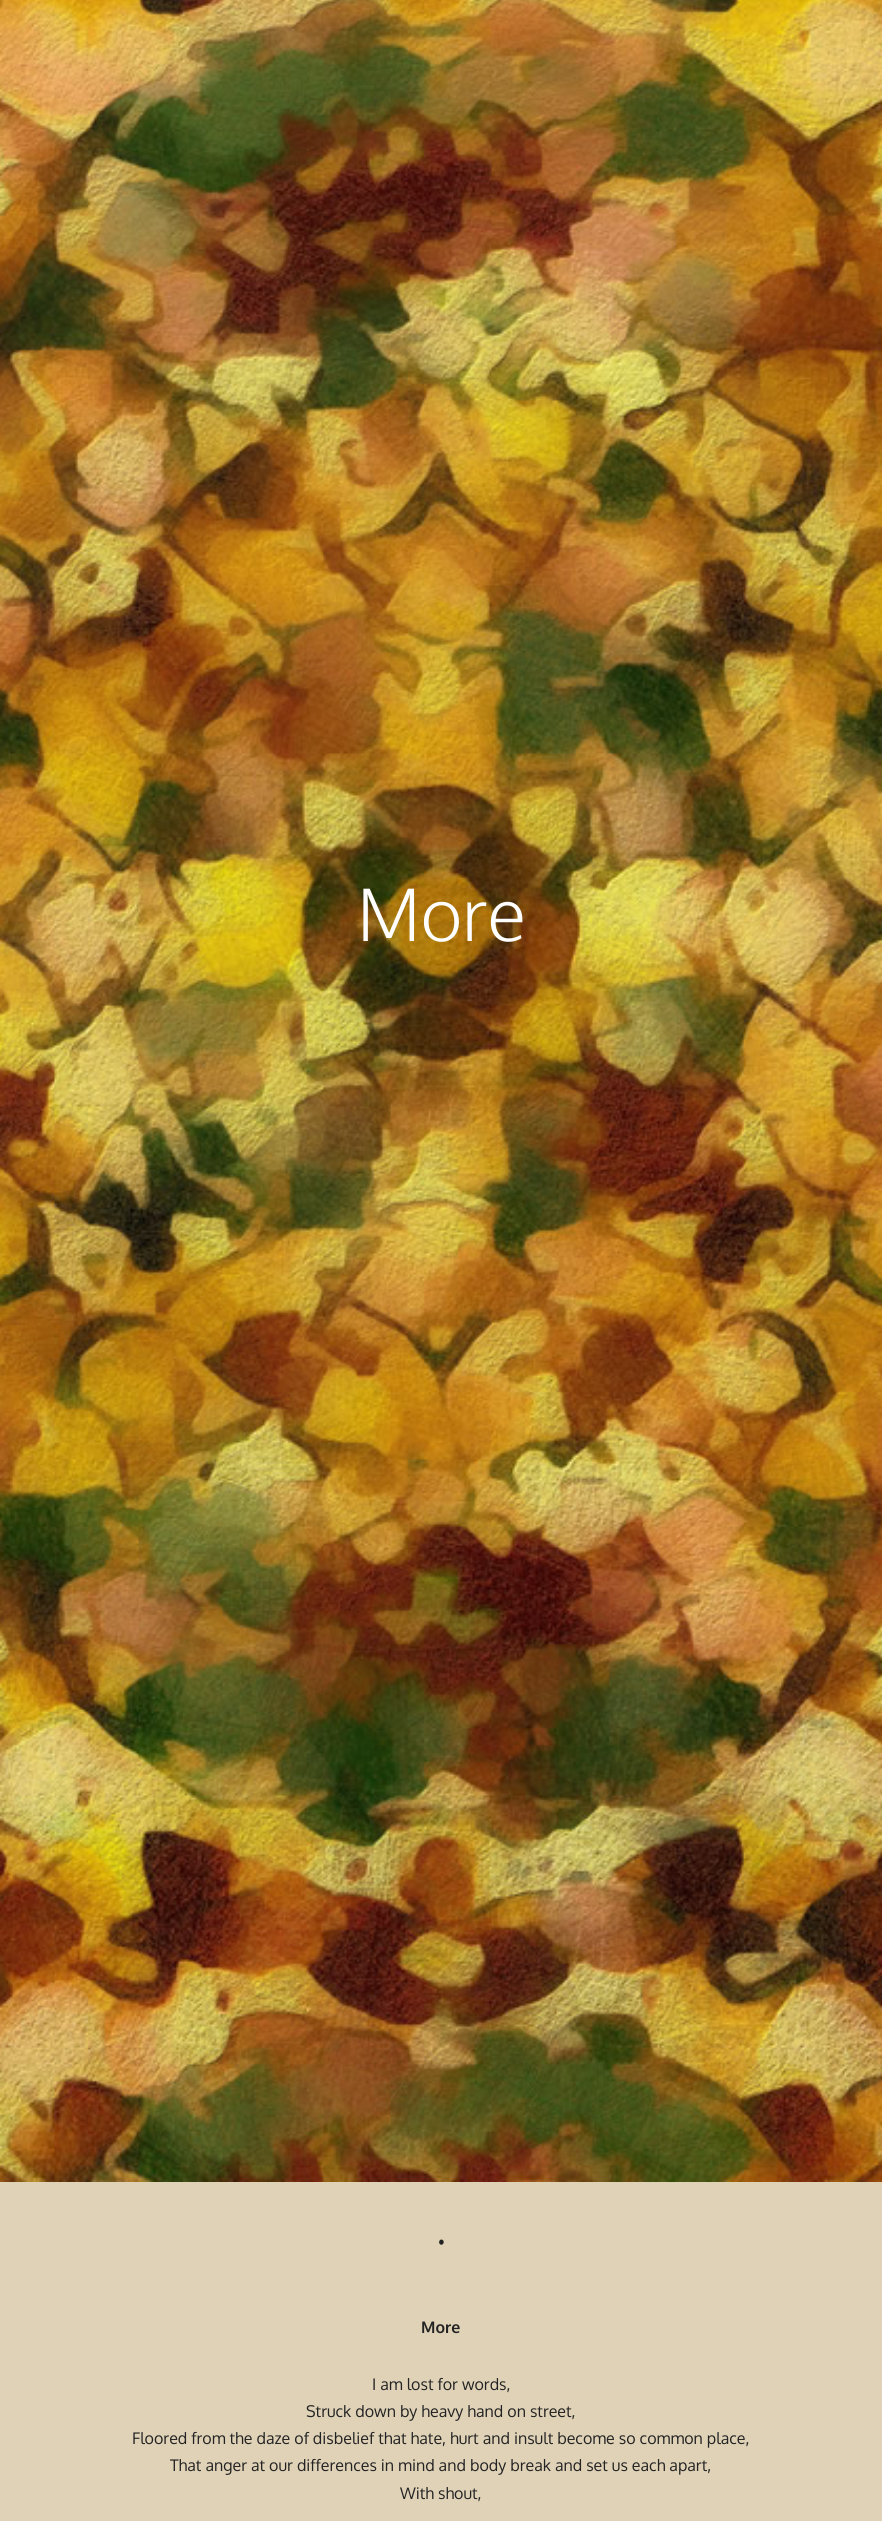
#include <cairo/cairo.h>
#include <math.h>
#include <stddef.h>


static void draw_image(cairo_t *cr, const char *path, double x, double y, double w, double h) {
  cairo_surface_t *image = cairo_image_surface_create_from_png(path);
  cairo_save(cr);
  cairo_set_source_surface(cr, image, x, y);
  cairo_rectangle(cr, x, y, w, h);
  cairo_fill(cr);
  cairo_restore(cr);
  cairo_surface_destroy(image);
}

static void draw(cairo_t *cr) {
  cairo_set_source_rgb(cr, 1, 1, 1);
  cairo_paint(cr);
  draw_image(cr, "images/1.png", 0, 0, 882, 2182);
  cairo_set_source_rgb(cr, 223 / 255.0, 210 / 255.0, 183 / 255.0);
  cairo_rectangle(cr, 0, 2182, 882, 339);
  cairo_fill(cr);
  cairo_select_font_face(cr, "Oxygen Light", CAIRO_FONT_SLANT_NORMAL, CAIRO_FONT_WEIGHT_NORMAL);
  cairo_set_font_size(cr, 72);
  cairo_set_source_rgb(cr, 1, 1, 1);
  cairo_move_to(cr, 357, 941);
  cairo_show_text(cr, "More");
  cairo_select_font_face(cr, "Oxygen", CAIRO_FONT_SLANT_NORMAL, CAIRO_FONT_WEIGHT_NORMAL);
  cairo_set_font_size(cr, 16);
  cairo_set_source_rgb(cr, 35 / 255.0, 35 / 255.0, 35 / 255.0);
  cairo_move_to(cr, 438, 2248);
  cairo_show_text(cr, "•");
  cairo_select_font_face(cr, "Oxygen", CAIRO_FONT_SLANT_NORMAL, CAIRO_FONT_WEIGHT_BOLD);
  cairo_move_to(cr, 421, 2333);
  cairo_show_text(cr, "More");
  cairo_select_font_face(cr, "Oxygen", CAIRO_FONT_SLANT_NORMAL, CAIRO_FONT_WEIGHT_NORMAL);
  cairo_move_to(cr, 372, 2390);
  cairo_show_text(cr, "I am lost for words,");
  cairo_move_to(cr, 306, 2417);
  cairo_show_text(cr, "Struck down by heavy hand on street,");
  cairo_move_to(cr, 132, 2444);
  cairo_show_text(cr, "Floored from the daze of disbelief that hate, hurt and insult become so common place,");
  cairo_move_to(cr, 170, 2471);
  cairo_show_text(cr, "That anger at our differences in mind and body break and set us each apart,");
  cairo_move_to(cr, 400, 2499);
  cairo_show_text(cr, "With shout,");
}

int main(void) {
  cairo_surface_t *surface = cairo_image_surface_create(CAIRO_FORMAT_RGB24, 882, 2521);
  cairo_t *cr = cairo_create(surface);
  cairo_font_options_t *options = cairo_font_options_create();
  cairo_font_options_set_hint_metrics(options, CAIRO_HINT_METRICS_OFF);
  cairo_font_options_set_hint_style(options, CAIRO_HINT_STYLE_NONE);
  cairo_set_font_options(cr, options);
  cairo_set_miter_limit(cr, 4);
  draw(cr);
  cairo_surface_write_to_png(surface, "out.png");
  cairo_font_options_destroy(options);
  cairo_destroy(cr);
  cairo_surface_destroy(surface);
  return 0;
}
